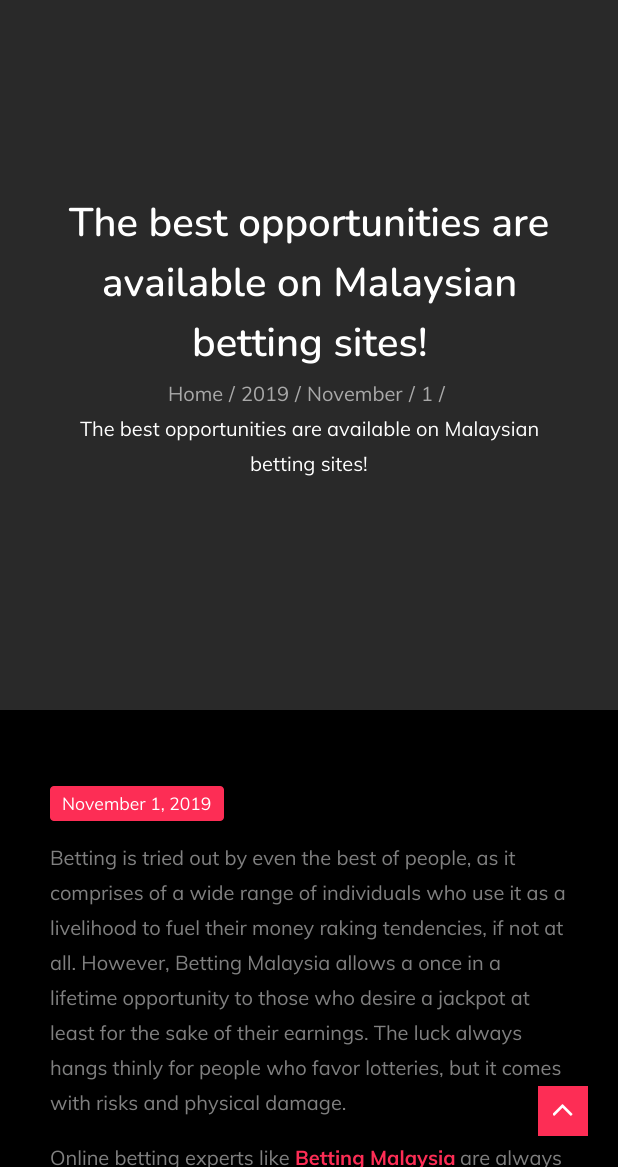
#include <cairo/cairo.h>
#include <math.h>
#include <stddef.h>


static void rounded_rect(cairo_t *cr, double x, double y, double w, double h, double r) {
  cairo_new_sub_path(cr);
  cairo_arc(cr, x + w - r, y + h - r, r, 0, M_PI / 2);
  cairo_arc(cr, x + r, y + h - r, r, M_PI / 2, M_PI);
  cairo_arc(cr, x + r, y + r, r, M_PI, 1.5 * M_PI);
  cairo_arc(cr, x + w - r, y + r, r, 1.5 * M_PI, 2 * M_PI);
  cairo_close_path(cr);
}

static void draw_image(cairo_t *cr, const char *path, double x, double y, double w, double h) {
  cairo_surface_t *image = cairo_image_surface_create_from_png(path);
  cairo_save(cr);
  cairo_set_source_surface(cr, image, x, y);
  cairo_rectangle(cr, x, y, w, h);
  cairo_fill(cr);
  cairo_restore(cr);
  cairo_surface_destroy(image);
}

static void draw(cairo_t *cr) {
  cairo_set_source_rgb(cr, 0, 0, 0);
  cairo_paint(cr);
  cairo_set_source_rgb(cr, 41 / 255.0, 41 / 255.0, 41 / 255.0);
  cairo_rectangle(cr, 0, 0, 618, 710);
  cairo_fill(cr);
  cairo_set_source_rgb(cr, 253 / 255.0, 45 / 255.0, 85 / 255.0);
  rounded_rect(cr, 50, 786, 174, 35, 4);
  cairo_fill(cr);
  cairo_rectangle(cr, 538, 1086, 50, 50);
  cairo_fill(cr);
  draw_image(cr, "images/1.png", 553, 1104, 20, 12);
  cairo_select_font_face(cr, "Nunito SemiBold", CAIRO_FONT_SLANT_NORMAL, CAIRO_FONT_WEIGHT_NORMAL);
  cairo_set_font_size(cr, 40);
  cairo_set_source_rgb(cr, 1, 1, 1);
  cairo_move_to(cr, 69, 236);
  cairo_show_text(cr, "The best opportunities are");
  cairo_move_to(cr, 102, 296);
  cairo_show_text(cr, "available on Malaysian");
  cairo_move_to(cr, 192, 356);
  cairo_show_text(cr, "betting sites!");
  cairo_select_font_face(cr, "Muli", CAIRO_FONT_SLANT_NORMAL, CAIRO_FONT_WEIGHT_NORMAL);
  cairo_set_font_size(cr, 20);
  cairo_set_source_rgb(cr, 169 / 255.0, 169 / 255.0, 169 / 255.0);
  cairo_move_to(cr, 168, 401);
  cairo_show_text(cr, "Home");
  cairo_move_to(cr, 229, 401);
  cairo_show_text(cr, "/");
  cairo_move_to(cr, 241, 401);
  cairo_show_text(cr, "2019");
  cairo_move_to(cr, 295, 401);
  cairo_show_text(cr, "/");
  cairo_move_to(cr, 307, 401);
  cairo_show_text(cr, "November");
  cairo_move_to(cr, 409, 401);
  cairo_show_text(cr, "/");
  cairo_move_to(cr, 421, 401);
  cairo_show_text(cr, "1");
  cairo_move_to(cr, 439, 401);
  cairo_show_text(cr, "/");
  cairo_set_source_rgb(cr, 1, 1, 1);
  cairo_move_to(cr, 80, 436);
  cairo_show_text(cr, "The best opportunities are available on Malaysian");
  cairo_move_to(cr, 250, 471);
  cairo_show_text(cr, "betting sites!");
  cairo_set_font_size(cr, 17.5);
  cairo_move_to(cr, 62, 810);
  cairo_show_text(cr, "November 1, 2019");
  cairo_set_font_size(cr, 20);
  cairo_set_source_rgb(cr, 128 / 255.0, 128 / 255.0, 128 / 255.0);
  cairo_move_to(cr, 50, 865);
  cairo_show_text(cr, "Betting is tried out by even the best of people, as it");
  cairo_move_to(cr, 50, 900);
  cairo_show_text(cr, "comprises of a wide range of individuals who use it as a");
  cairo_move_to(cr, 50, 935);
  cairo_show_text(cr, "livelihood to fuel their money raking tendencies, if not at");
  cairo_move_to(cr, 50, 970);
  cairo_show_text(cr, "all. However, Betting Malaysia allows a once in a");
  cairo_move_to(cr, 50, 1005);
  cairo_show_text(cr, "lifetime opportunity to those who desire a jackpot at");
  cairo_move_to(cr, 50, 1040);
  cairo_show_text(cr, "least for the sake of their earnings. The luck always");
  cairo_move_to(cr, 50, 1075);
  cairo_show_text(cr, "hangs thinly for people who favor lotteries, but it comes");
  cairo_move_to(cr, 50, 1110);
  cairo_show_text(cr, "with risks and physical damage.");
  cairo_move_to(cr, 50, 1165);
  cairo_show_text(cr, "Online betting experts like");
  cairo_select_font_face(cr, "Muli", CAIRO_FONT_SLANT_NORMAL, CAIRO_FONT_WEIGHT_BOLD);
  cairo_set_source_rgb(cr, 253 / 255.0, 45 / 255.0, 85 / 255.0);
  cairo_move_to(cr, 295, 1165);
  cairo_show_text(cr, "Betting Malaysia");
  cairo_select_font_face(cr, "Muli", CAIRO_FONT_SLANT_NORMAL, CAIRO_FONT_WEIGHT_NORMAL);
  cairo_set_source_rgb(cr, 128 / 255.0, 128 / 255.0, 128 / 255.0);
  cairo_move_to(cr, 460, 1165);
  cairo_show_text(cr, "are always");
}

int main(void) {
  cairo_surface_t *surface = cairo_image_surface_create(CAIRO_FORMAT_RGB24, 618, 1167);
  cairo_t *cr = cairo_create(surface);
  cairo_font_options_t *options = cairo_font_options_create();
  cairo_font_options_set_hint_metrics(options, CAIRO_HINT_METRICS_OFF);
  cairo_font_options_set_hint_style(options, CAIRO_HINT_STYLE_NONE);
  cairo_set_font_options(cr, options);
  cairo_set_miter_limit(cr, 4);
  draw(cr);
  cairo_surface_write_to_png(surface, "out.png");
  cairo_font_options_destroy(options);
  cairo_destroy(cr);
  cairo_surface_destroy(surface);
  return 0;
}
